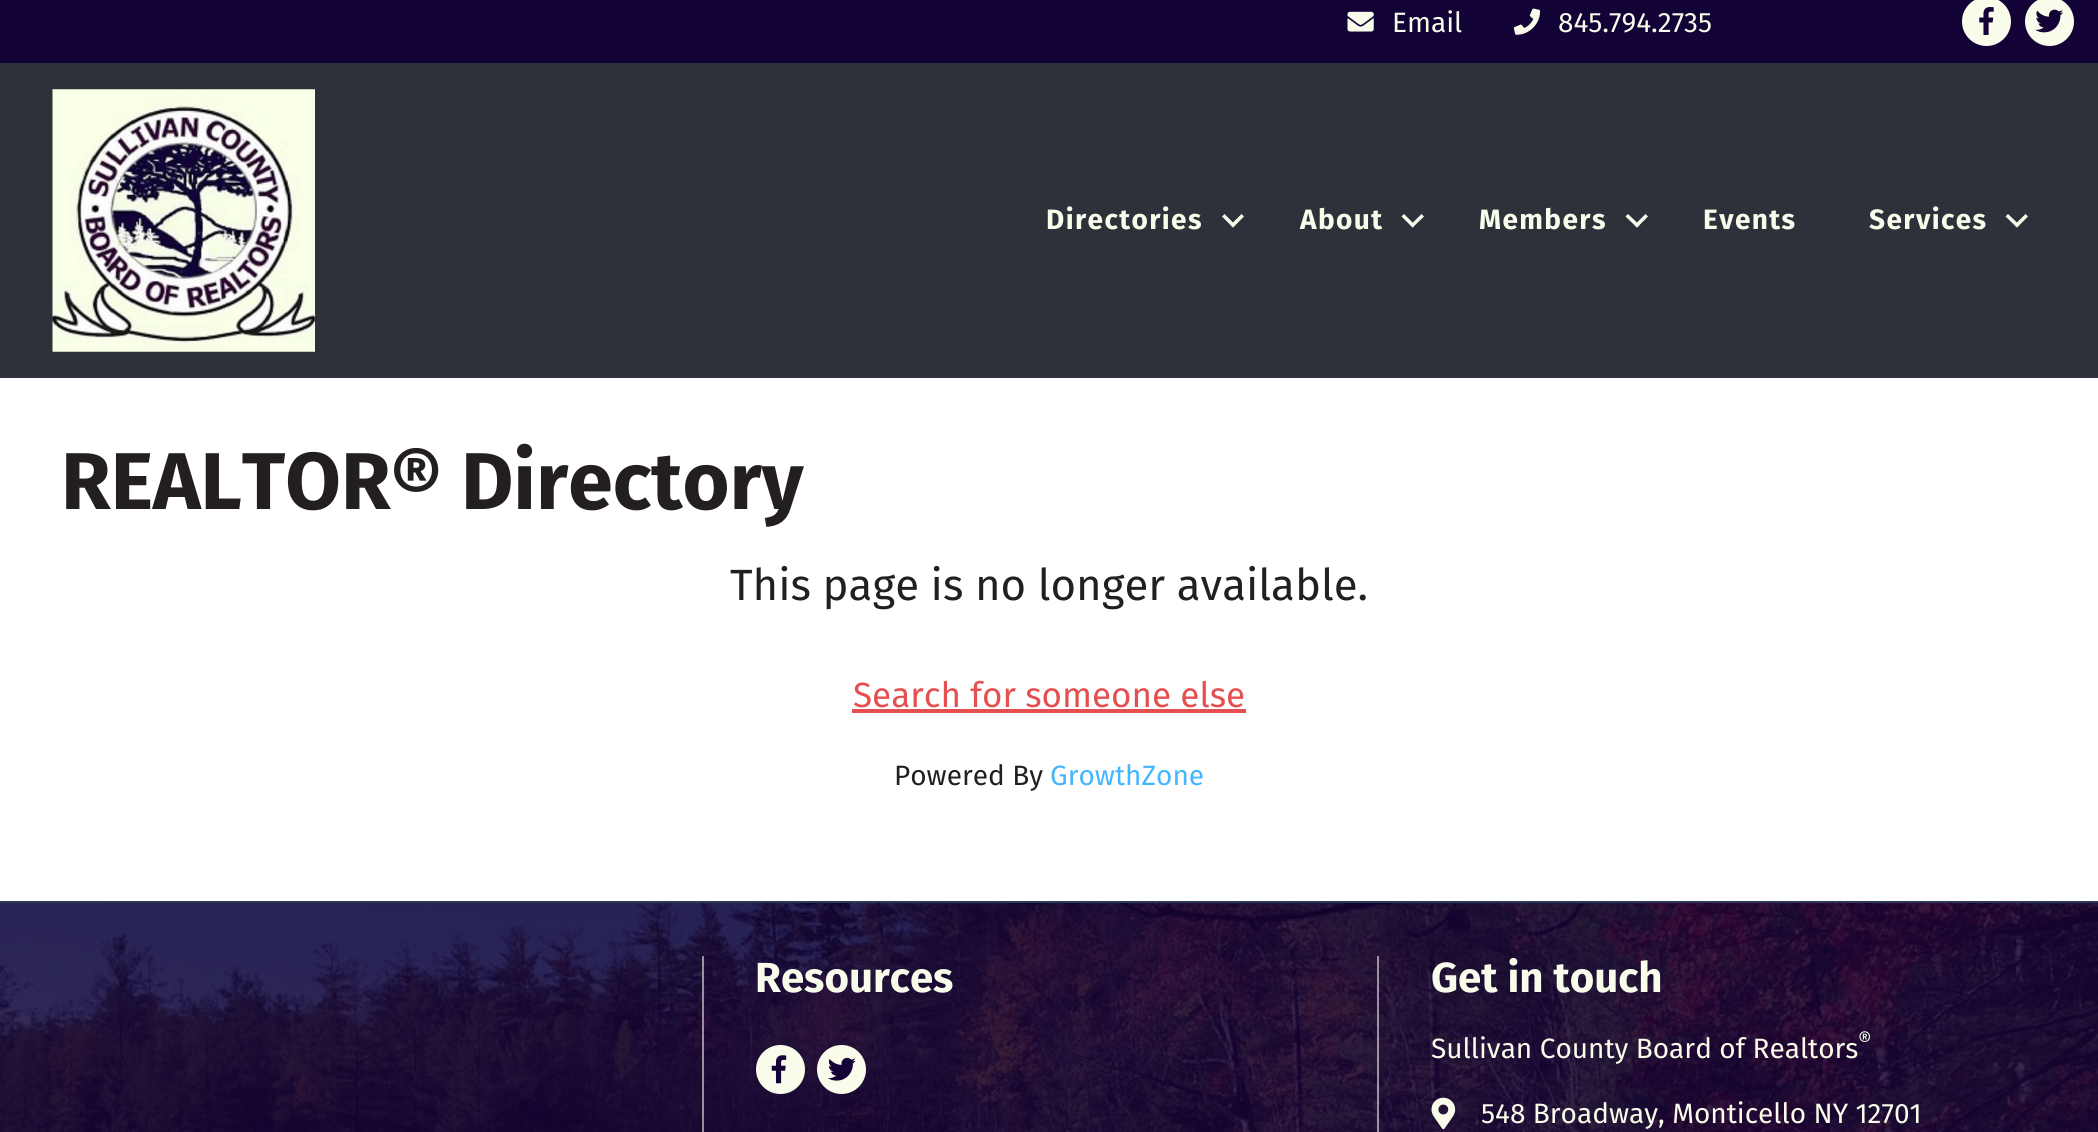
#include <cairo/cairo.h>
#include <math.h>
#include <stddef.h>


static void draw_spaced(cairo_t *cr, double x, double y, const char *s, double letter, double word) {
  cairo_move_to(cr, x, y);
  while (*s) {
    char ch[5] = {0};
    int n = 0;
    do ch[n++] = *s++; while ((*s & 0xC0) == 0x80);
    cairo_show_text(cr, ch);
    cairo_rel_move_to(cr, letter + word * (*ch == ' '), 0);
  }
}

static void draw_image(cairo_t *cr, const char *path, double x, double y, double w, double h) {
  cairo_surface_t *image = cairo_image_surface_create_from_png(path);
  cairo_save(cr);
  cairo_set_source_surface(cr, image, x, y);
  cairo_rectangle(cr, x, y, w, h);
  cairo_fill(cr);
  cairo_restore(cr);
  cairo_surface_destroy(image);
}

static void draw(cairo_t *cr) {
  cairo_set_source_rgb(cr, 45 / 255.0, 49 / 255.0, 58 / 255.0);
  cairo_paint(cr);
  cairo_set_source_rgb(cr, 19 / 255.0, 2 / 255.0, 54 / 255.0);
  cairo_rectangle(cr, 0, 0, 2098, 63);
  cairo_fill(cr);
  draw_image(cr, "images/1.png", 1347, 11, 27, 21);
  draw_image(cr, "images/2.png", 1513, 8, 28, 27);
  cairo_set_source_rgb(cr, 249 / 255.0, 252 / 255.0, 234 / 255.0);
  cairo_arc(cr, 1986.5, 21.5, 24.5, 0, 2 * M_PI);
  cairo_fill(cr);
  draw_image(cr, "images/3.png", 1979, 7, 15, 28);
  cairo_arc(cr, 2049.5, 21.5, 24.5, 0, 2 * M_PI);
  cairo_fill(cr);
  draw_image(cr, "images/4.png", 2035, 9, 29, 24);
  draw_image(cr, "images/5.png", 52, 89, 263, 263);
  cairo_new_path(cr);
  cairo_move_to(cr, 1241.5, 214);
  cairo_line_to(cr, 1244, 216.5);
  cairo_line_to(cr, 1233, 227.5);
  cairo_line_to(cr, 1230.5, 225);
  cairo_close_path(cr);
  cairo_fill(cr);
  cairo_new_path(cr);
  cairo_move_to(cr, 1224.5, 214);
  cairo_line_to(cr, 1235.5, 225);
  cairo_line_to(cr, 1233, 227.5);
  cairo_line_to(cr, 1222, 216.5);
  cairo_close_path(cr);
  cairo_fill(cr);
  cairo_new_path(cr);
  cairo_move_to(cr, 1421.5, 214);
  cairo_line_to(cr, 1424, 216.5);
  cairo_line_to(cr, 1412.5, 227.5);
  cairo_line_to(cr, 1410.5, 225);
  cairo_close_path(cr);
  cairo_fill(cr);
  cairo_new_path(cr);
  cairo_move_to(cr, 1404, 214);
  cairo_line_to(cr, 1415, 225);
  cairo_line_to(cr, 1412.5, 227.5);
  cairo_line_to(cr, 1401.5, 216.5);
  cairo_close_path(cr);
  cairo_fill(cr);
  cairo_new_path(cr);
  cairo_move_to(cr, 1645.5, 214);
  cairo_line_to(cr, 1648, 216.5);
  cairo_line_to(cr, 1637, 227.5);
  cairo_line_to(cr, 1634.5, 225);
  cairo_close_path(cr);
  cairo_fill(cr);
  cairo_new_path(cr);
  cairo_move_to(cr, 1628, 214);
  cairo_line_to(cr, 1639.5, 225);
  cairo_line_to(cr, 1637, 227.5);
  cairo_line_to(cr, 1625.5, 216.5);
  cairo_close_path(cr);
  cairo_fill(cr);
  cairo_new_path(cr);
  cairo_move_to(cr, 2025.5, 214);
  cairo_line_to(cr, 2028, 216.5);
  cairo_line_to(cr, 2017, 227.5);
  cairo_line_to(cr, 2014.5, 225);
  cairo_close_path(cr);
  cairo_fill(cr);
  cairo_new_path(cr);
  cairo_move_to(cr, 2008, 214);
  cairo_line_to(cr, 2019.5, 225);
  cairo_line_to(cr, 2017, 227.5);
  cairo_line_to(cr, 2005.5, 216.5);
  cairo_close_path(cr);
  cairo_fill(cr);
  cairo_set_source_rgb(cr, 1, 1, 1);
  cairo_rectangle(cr, 0, 378, 2098, 523);
  cairo_fill(cr);
  cairo_set_source_rgb(cr, 229 / 255.0, 79 / 255.0, 79 / 255.0);
  cairo_rectangle(cr, 852, 709, 394, 4);
  cairo_fill(cr);
  draw_image(cr, "images/6.png", 0, 903, 2098, 229);
  cairo_set_source_rgb(cr, 44 / 255.0, 58 / 255.0, 86 / 255.0);
  cairo_rectangle(cr, 0, 901, 2098, 2);
  cairo_fill(cr);
  cairo_set_source_rgba(cr, 1, 1, 1, 0.54);
  cairo_rectangle(cr, 702, 956, 2, 176);
  cairo_fill(cr);
  cairo_set_source_rgb(cr, 249 / 255.0, 252 / 255.0, 234 / 255.0);
  cairo_arc(cr, 780.5, 1069.5, 24.5, 0, 2 * M_PI);
  cairo_fill(cr);
  draw_image(cr, "images/7.png", 771, 1055, 16, 29);
  cairo_arc(cr, 841.5, 1069.5, 24.5, 0, 2 * M_PI);
  cairo_fill(cr);
  draw_image(cr, "images/8.png", 828, 1057, 28, 24);
  cairo_set_source_rgba(cr, 1, 1, 1, 0.54);
  cairo_rectangle(cr, 1377, 956, 2, 176);
  cairo_fill(cr);
  draw_image(cr, "images/9.png", 1431, 1097, 25, 33);
  cairo_select_font_face(cr, "Fira Sans", CAIRO_FONT_SLANT_NORMAL, CAIRO_FONT_WEIGHT_NORMAL);
  cairo_set_font_size(cr, 28);
  cairo_set_source_rgb(cr, 249 / 255.0, 252 / 255.0, 234 / 255.0);
  cairo_move_to(cr, 1392, 32);
  cairo_show_text(cr, "Email");
  cairo_move_to(cr, 1558, 32);
  cairo_show_text(cr, "845.794.2735");
  cairo_select_font_face(cr, "Fira Sans", CAIRO_FONT_SLANT_NORMAL, CAIRO_FONT_WEIGHT_BOLD);
  draw_spaced(cr, 1046, 229, "Directories", 1.4, 0);
  draw_spaced(cr, 1300, 229, "About", 1.4, 0);
  draw_spaced(cr, 1479, 229, "Members", 1.4, 0);
  draw_spaced(cr, 1703, 229, "Events", 1.4, 0);
  draw_spaced(cr, 1869, 229, "Services", 1.4, 0);
  cairo_set_font_size(cr, 80.5);
  cairo_set_source_rgb(cr, 35 / 255.0, 31 / 255.0, 32 / 255.0);
  cairo_move_to(cr, 61, 509);
  cairo_show_text(cr, "REALTOR® Directory");
  cairo_select_font_face(cr, "Fira Sans", CAIRO_FONT_SLANT_NORMAL, CAIRO_FONT_WEIGHT_NORMAL);
  cairo_set_font_size(cr, 43.75);
  cairo_move_to(cr, 730, 600);
  cairo_show_text(cr, "This page is no longer available.");
  cairo_set_font_size(cr, 35);
  cairo_set_source_rgb(cr, 229 / 255.0, 79 / 255.0, 79 / 255.0);
  cairo_move_to(cr, 853, 707);
  cairo_show_text(cr, "Search for someone else");
  cairo_set_font_size(cr, 28);
  cairo_set_source_rgb(cr, 35 / 255.0, 31 / 255.0, 32 / 255.0);
  cairo_move_to(cr, 894, 785);
  cairo_show_text(cr, "Powered By");
  cairo_set_source_rgb(cr, 69 / 255.0, 182 / 255.0, 254 / 255.0);
  cairo_move_to(cr, 1050, 785);
  cairo_show_text(cr, "GrowthZone");
  cairo_select_font_face(cr, "Fira Sans", CAIRO_FONT_SLANT_NORMAL, CAIRO_FONT_WEIGHT_BOLD);
  cairo_set_font_size(cr, 42);
  cairo_set_source_rgb(cr, 249 / 255.0, 252 / 255.0, 234 / 255.0);
  cairo_move_to(cr, 755, 992);
  cairo_show_text(cr, "Resources");
  cairo_move_to(cr, 1431, 992);
  cairo_show_text(cr, "Get in touch");
  cairo_select_font_face(cr, "Fira Sans", CAIRO_FONT_SLANT_NORMAL, CAIRO_FONT_WEIGHT_NORMAL);
  cairo_set_font_size(cr, 28);
  cairo_move_to(cr, 1431, 1058);
  cairo_show_text(cr, "Sullivan County Board of Realtors");
  cairo_set_font_size(cr, 21);
  cairo_move_to(cr, 1858, 1047);
  cairo_show_text(cr, "®");
  cairo_set_font_size(cr, 28);
  cairo_move_to(cr, 1481, 1123);
  cairo_show_text(cr, "548 Broadway, Monticello NY 12701");
}

int main(void) {
  cairo_surface_t *surface = cairo_image_surface_create(CAIRO_FORMAT_RGB24, 2098, 1132);
  cairo_t *cr = cairo_create(surface);
  cairo_font_options_t *options = cairo_font_options_create();
  cairo_font_options_set_hint_metrics(options, CAIRO_HINT_METRICS_OFF);
  cairo_font_options_set_hint_style(options, CAIRO_HINT_STYLE_NONE);
  cairo_set_font_options(cr, options);
  cairo_set_miter_limit(cr, 4);
  draw(cr);
  cairo_surface_write_to_png(surface, "out.png");
  cairo_font_options_destroy(options);
  cairo_destroy(cr);
  cairo_surface_destroy(surface);
  return 0;
}
